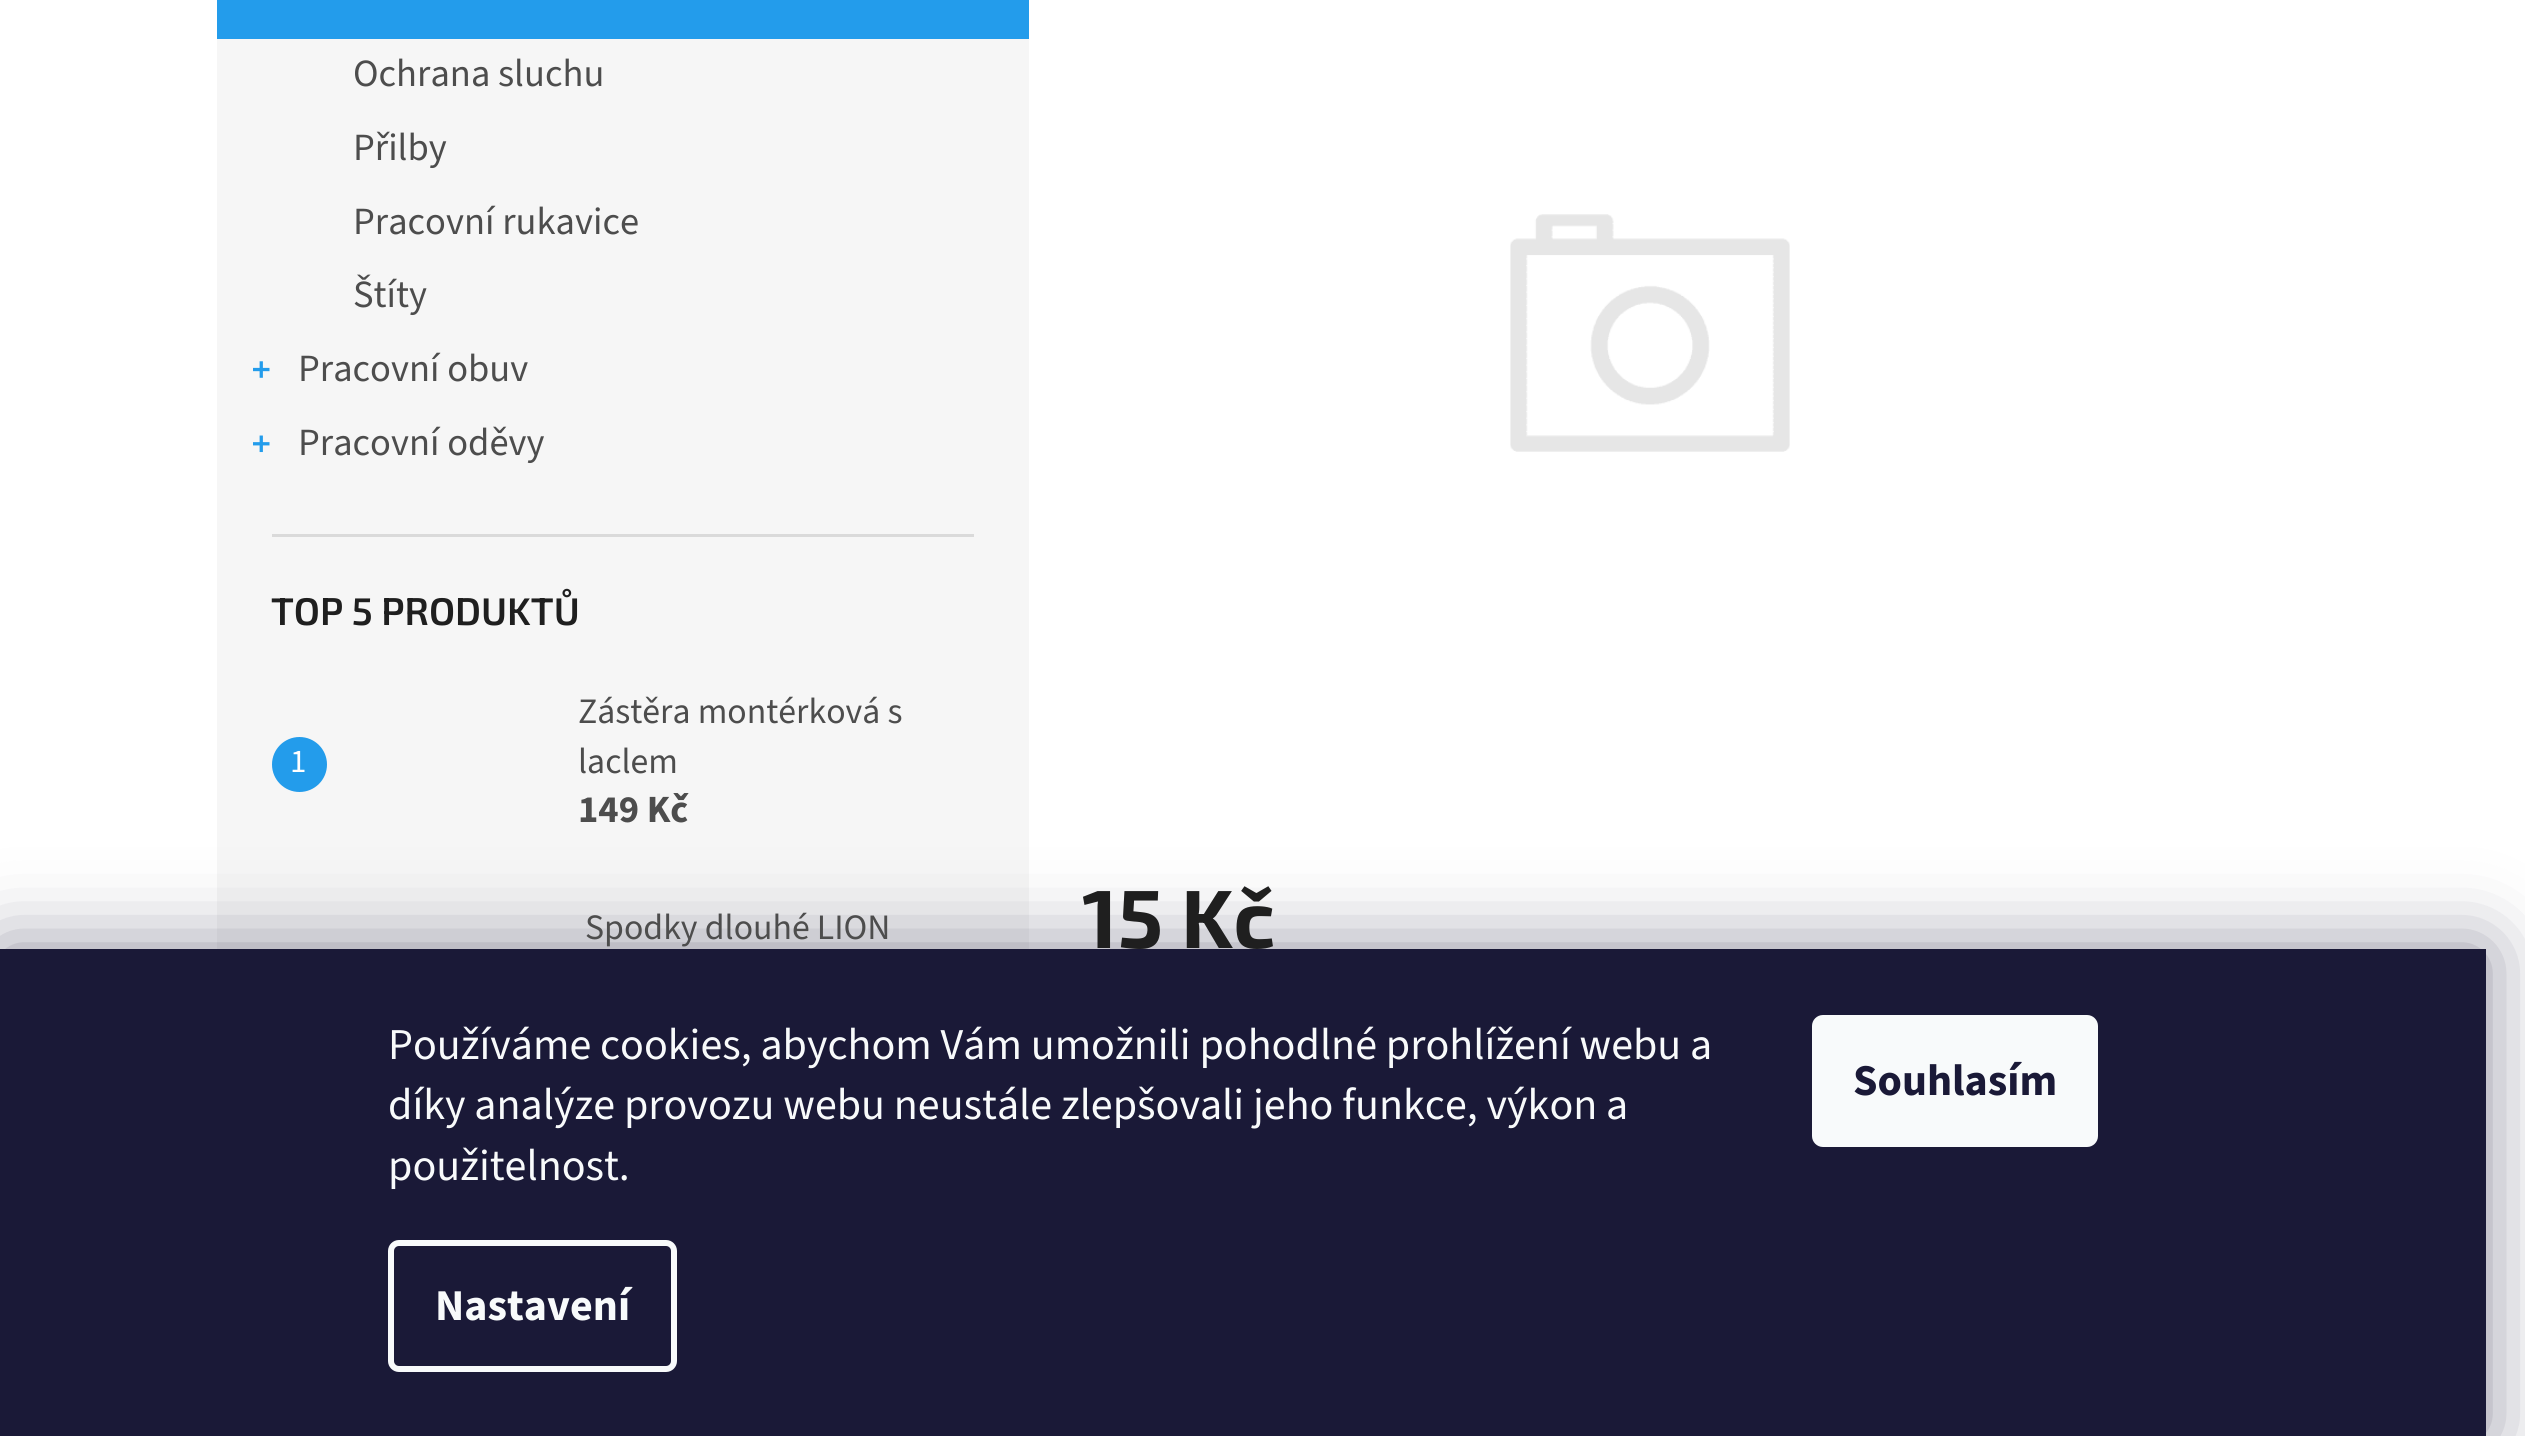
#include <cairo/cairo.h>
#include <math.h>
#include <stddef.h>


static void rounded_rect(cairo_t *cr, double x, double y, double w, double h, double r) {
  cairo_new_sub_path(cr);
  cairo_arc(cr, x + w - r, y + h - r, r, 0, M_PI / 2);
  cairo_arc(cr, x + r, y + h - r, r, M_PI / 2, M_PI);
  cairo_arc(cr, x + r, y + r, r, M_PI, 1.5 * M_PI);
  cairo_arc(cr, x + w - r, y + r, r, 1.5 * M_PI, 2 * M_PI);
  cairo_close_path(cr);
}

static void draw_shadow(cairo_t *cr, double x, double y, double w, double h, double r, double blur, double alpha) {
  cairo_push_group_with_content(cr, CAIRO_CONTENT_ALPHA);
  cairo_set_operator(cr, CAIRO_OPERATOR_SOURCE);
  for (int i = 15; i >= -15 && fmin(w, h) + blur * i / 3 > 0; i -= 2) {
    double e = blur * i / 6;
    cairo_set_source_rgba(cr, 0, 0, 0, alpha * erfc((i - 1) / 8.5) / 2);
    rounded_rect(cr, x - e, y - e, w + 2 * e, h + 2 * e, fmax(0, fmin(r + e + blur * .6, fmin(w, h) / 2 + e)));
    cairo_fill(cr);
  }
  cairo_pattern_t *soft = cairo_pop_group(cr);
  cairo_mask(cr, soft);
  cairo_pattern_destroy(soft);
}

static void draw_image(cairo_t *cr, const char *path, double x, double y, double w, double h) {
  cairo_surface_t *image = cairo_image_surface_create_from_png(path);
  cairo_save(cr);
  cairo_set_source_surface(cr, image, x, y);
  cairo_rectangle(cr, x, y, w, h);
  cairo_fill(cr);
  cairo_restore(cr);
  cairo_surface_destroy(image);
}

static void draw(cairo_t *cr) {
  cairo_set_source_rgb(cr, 1, 1, 1);
  cairo_paint(cr);
  cairo_set_source_rgb(cr, 246 / 255.0, 246 / 255.0, 246 / 255.0);
  cairo_rectangle(cr, 217, 39, 812, 910);
  cairo_fill(cr);
  cairo_set_source_rgb(cr, 218 / 255.0, 218 / 255.0, 218 / 255.0);
  cairo_rectangle(cr, 272, 534, 702, 3);
  cairo_fill(cr);
  cairo_set_source_rgb(cr, 35 / 255.0, 156 / 255.0, 235 / 255.0);
  cairo_rectangle(cr, 217, 0, 812, 39);
  cairo_fill(cr);
  draw_image(cr, "images/1.png", 253, 361, 17, 17);
  draw_image(cr, "images/2.png", 253, 435, 17, 18);
  cairo_arc(cr, 299.5, 764.5, 27.5, 0, 2 * M_PI);
  cairo_fill(cr);
  draw_image(cr, "images/3.png", 1510, 214, 280, 238);
  cairo_set_source_rgb(cr, 27 / 255.0, 25 / 255.0, 57 / 255.0);
  draw_shadow(cr, 0, 949, 2486, 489, 0, 41, 0.5);
  cairo_set_source_rgb(cr, 26 / 255.0, 25 / 255.0, 55 / 255.0);
  cairo_rectangle(cr, 0, 949, 2486, 487);
  cairo_fill(cr);
  rounded_rect(cr, 391, 1243, 283, 126, 8);
  cairo_set_source_rgb(cr, 248 / 255.0, 250 / 255.0, 251 / 255.0);
  cairo_set_line_width(cr, 6);
  cairo_stroke(cr);
  rounded_rect(cr, 1812, 1015, 286, 132, 11);
  cairo_fill(cr);
  cairo_select_font_face(cr, "Source Sans 3", CAIRO_FONT_SLANT_NORMAL, CAIRO_FONT_WEIGHT_NORMAL);
  cairo_set_font_size(cr, 38.5);
  cairo_set_source_rgb(cr, 77 / 255.0, 77 / 255.0, 77 / 255.0);
  cairo_move_to(cr, 353, 86);
  cairo_show_text(cr, "Ochrana sluchu");
  cairo_move_to(cr, 353, 160);
  cairo_show_text(cr, "Přilby");
  cairo_move_to(cr, 353, 234);
  cairo_show_text(cr, "Pracovní rukavice");
  cairo_move_to(cr, 353, 307);
  cairo_show_text(cr, "Štíty");
  cairo_move_to(cr, 298, 381);
  cairo_show_text(cr, "Pracovní obuv");
  cairo_move_to(cr, 298, 455);
  cairo_show_text(cr, "Pracovní oděvy");
  cairo_select_font_face(cr, "Exo 2 SemiBold", CAIRO_FONT_SLANT_NORMAL, CAIRO_FONT_WEIGHT_NORMAL);
  cairo_set_source_rgb(cr, 31 / 255.0, 31 / 255.0, 31 / 255.0);
  cairo_move_to(cr, 271, 625);
  cairo_show_text(cr, "TOP 5 PRODUKTŮ");
  cairo_select_font_face(cr, "Source Sans 3", CAIRO_FONT_SLANT_NORMAL, CAIRO_FONT_WEIGHT_NORMAL);
  cairo_set_font_size(cr, 33);
  cairo_set_source_rgb(cr, 1, 1, 1);
  cairo_move_to(cr, 290, 772);
  cairo_show_text(cr, "1");
  cairo_set_font_size(cr, 35.75);
  cairo_set_source_rgb(cr, 77 / 255.0, 77 / 255.0, 77 / 255.0);
  cairo_move_to(cr, 578, 723);
  cairo_show_text(cr, "Zástěra montérková s");
  cairo_move_to(cr, 578, 773);
  cairo_show_text(cr, "laclem");
  cairo_select_font_face(cr, "Source Sans 3", CAIRO_FONT_SLANT_NORMAL, CAIRO_FONT_WEIGHT_BOLD);
  cairo_set_font_size(cr, 38.5);
  cairo_move_to(cr, 578, 822);
  cairo_show_text(cr, "149 Kč");
  cairo_select_font_face(cr, "Source Sans 3", CAIRO_FONT_SLANT_NORMAL, CAIRO_FONT_WEIGHT_NORMAL);
  cairo_set_font_size(cr, 35.75);
  cairo_move_to(cr, 585, 939);
  cairo_show_text(cr, "Spodky dlouhé LION");
  cairo_select_font_face(cr, "Exo 2", CAIRO_FONT_SLANT_NORMAL, CAIRO_FONT_WEIGHT_BOLD);
  cairo_set_font_size(cr, 82.5);
  cairo_set_source_rgb(cr, 31 / 255.0, 31 / 255.0, 31 / 255.0);
  cairo_move_to(cr, 1082, 948);
  cairo_show_text(cr, "15 Kč");
  cairo_select_font_face(cr, "Source Sans 3", CAIRO_FONT_SLANT_NORMAL, CAIRO_FONT_WEIGHT_NORMAL);
  cairo_set_font_size(cr, 44);
  cairo_set_source_rgb(cr, 248 / 255.0, 250 / 255.0, 251 / 255.0);
  cairo_move_to(cr, 388, 1059);
  cairo_show_text(cr, "Používáme cookies, abychom Vám umožnili pohodlné prohlížení webu a");
  cairo_move_to(cr, 388, 1119);
  cairo_show_text(cr, "díky analýze provozu webu neustále zlepšovali jeho funkce, výkon a");
  cairo_move_to(cr, 388, 1180);
  cairo_show_text(cr, "použitelnost.");
  cairo_select_font_face(cr, "Source Sans 3", CAIRO_FONT_SLANT_NORMAL, CAIRO_FONT_WEIGHT_BOLD);
  cairo_move_to(cr, 435, 1320);
  cairo_show_text(cr, "Nastavení");
  cairo_set_source_rgb(cr, 26 / 255.0, 25 / 255.0, 55 / 255.0);
  cairo_move_to(cr, 1853, 1095);
  cairo_show_text(cr, "Souhlasím");
}

int main(void) {
  cairo_surface_t *surface = cairo_image_surface_create(CAIRO_FORMAT_RGB24, 2525, 1436);
  cairo_t *cr = cairo_create(surface);
  cairo_font_options_t *options = cairo_font_options_create();
  cairo_font_options_set_hint_metrics(options, CAIRO_HINT_METRICS_OFF);
  cairo_font_options_set_hint_style(options, CAIRO_HINT_STYLE_NONE);
  cairo_set_font_options(cr, options);
  cairo_set_miter_limit(cr, 4);
  draw(cr);
  cairo_surface_write_to_png(surface, "out.png");
  cairo_font_options_destroy(options);
  cairo_destroy(cr);
  cairo_surface_destroy(surface);
  return 0;
}
